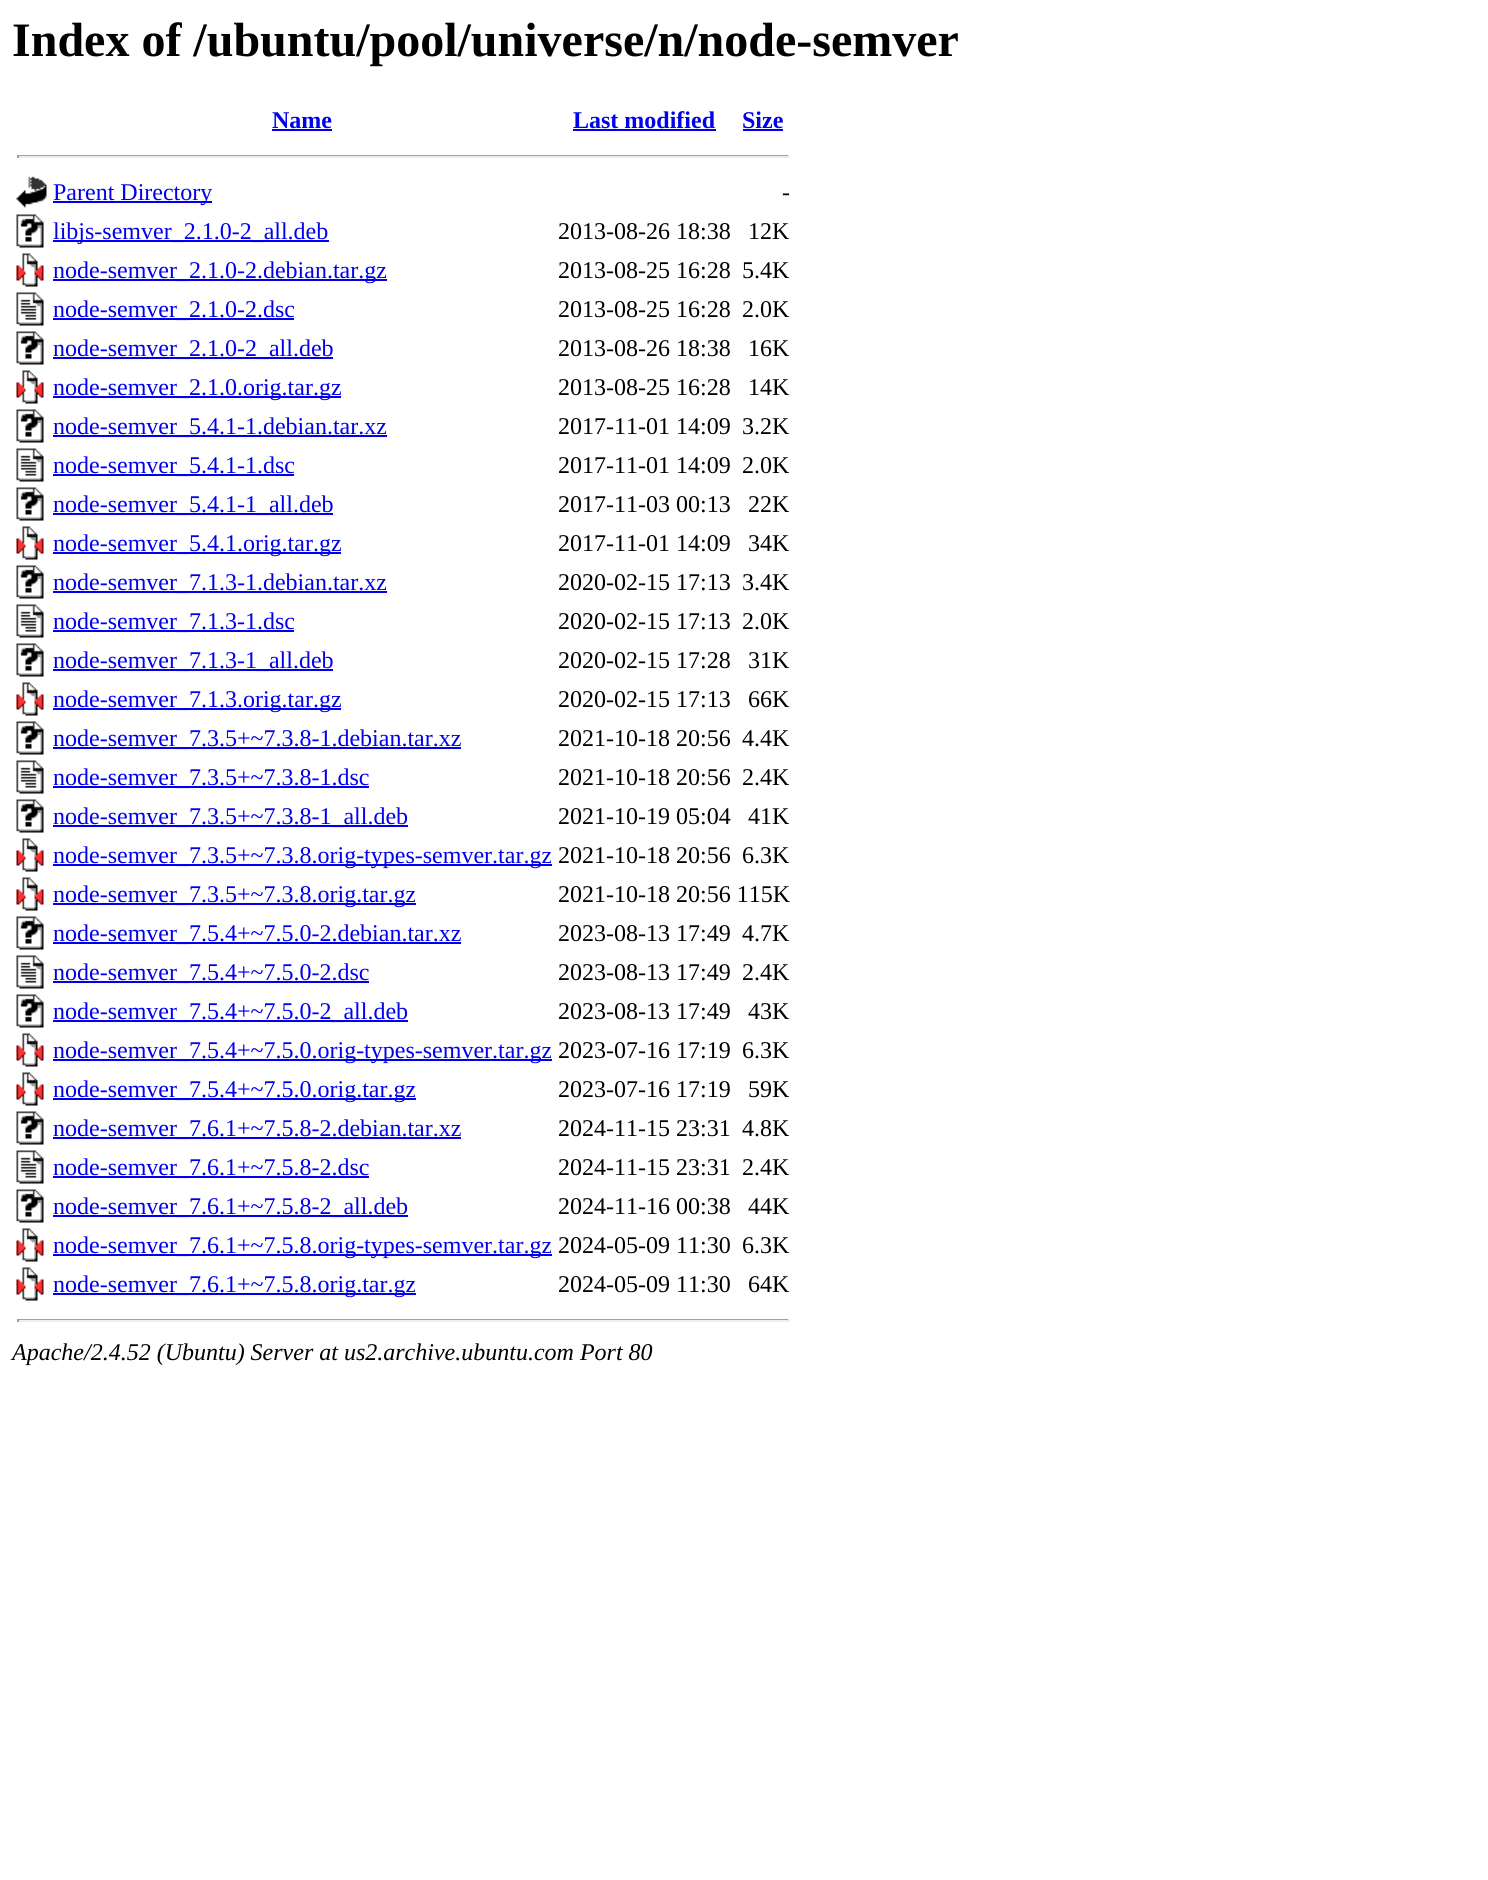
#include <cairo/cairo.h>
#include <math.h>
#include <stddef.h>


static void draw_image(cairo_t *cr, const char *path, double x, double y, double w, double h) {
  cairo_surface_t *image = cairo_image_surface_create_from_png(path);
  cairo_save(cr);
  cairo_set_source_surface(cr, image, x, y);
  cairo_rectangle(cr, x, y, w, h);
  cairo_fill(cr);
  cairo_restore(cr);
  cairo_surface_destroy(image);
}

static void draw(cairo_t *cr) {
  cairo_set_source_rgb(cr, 1, 1, 1);
  cairo_paint(cr);
  cairo_set_source_rgb(cr, 0, 0, 238 / 255.0);
  cairo_rectangle(cr, 272, 129, 60, 2);
  cairo_fill(cr);
  cairo_rectangle(cr, 573, 129, 143, 2);
  cairo_fill(cr);
  cairo_rectangle(cr, 743, 129, 40, 2);
  cairo_fill(cr);
  cairo_set_source_rgb(cr, 159 / 255.0, 159 / 255.0, 159 / 255.0);
  cairo_rectangle(cr, 17, 155, 772, 1);
  cairo_fill(cr);
  cairo_set_source_rgb(cr, 238 / 255.0, 238 / 255.0, 238 / 255.0);
  cairo_rectangle(cr, 788, 155, 2, 3);
  cairo_fill(cr);
  cairo_rectangle(cr, 17, 156, 772, 2);
  cairo_fill(cr);
  cairo_set_source_rgb(cr, 159 / 255.0, 159 / 255.0, 159 / 255.0);
  cairo_rectangle(cr, 17, 155, 2, 3);
  cairo_fill(cr);
  draw_image(cr, "images/1.png", 16, 176, 31, 32);
  cairo_set_source_rgb(cr, 0, 0, 238 / 255.0);
  cairo_rectangle(cr, 53, 201, 159, 2);
  cairo_fill(cr);
  draw_image(cr, "images/2.png", 16, 214, 28, 34);
  cairo_rectangle(cr, 53, 240, 276, 2);
  cairo_fill(cr);
  draw_image(cr, "images/3.png", 16, 253, 28, 34);
  cairo_rectangle(cr, 53, 279, 334, 2);
  cairo_fill(cr);
  draw_image(cr, "images/4.png", 16, 292, 28, 34);
  cairo_rectangle(cr, 53, 318, 241, 2);
  cairo_fill(cr);
  draw_image(cr, "images/2.png", 16, 331, 28, 34);
  cairo_rectangle(cr, 53, 357, 280, 2);
  cairo_fill(cr);
  draw_image(cr, "images/3.png", 16, 370, 28, 34);
  cairo_rectangle(cr, 53, 396, 288, 2);
  cairo_fill(cr);
  draw_image(cr, "images/2.png", 16, 409, 28, 34);
  cairo_rectangle(cr, 53, 435, 334, 2);
  cairo_fill(cr);
  draw_image(cr, "images/4.png", 16, 448, 28, 34);
  cairo_rectangle(cr, 53, 474, 241, 2);
  cairo_fill(cr);
  draw_image(cr, "images/2.png", 16, 487, 28, 34);
  cairo_rectangle(cr, 53, 513, 280, 2);
  cairo_fill(cr);
  draw_image(cr, "images/3.png", 16, 526, 28, 34);
  cairo_rectangle(cr, 53, 552, 288, 2);
  cairo_fill(cr);
  draw_image(cr, "images/2.png", 16, 565, 28, 34);
  cairo_rectangle(cr, 53, 591, 334, 2);
  cairo_fill(cr);
  draw_image(cr, "images/4.png", 16, 604, 28, 34);
  cairo_rectangle(cr, 53, 630, 241, 2);
  cairo_fill(cr);
  draw_image(cr, "images/2.png", 16, 643, 28, 34);
  cairo_rectangle(cr, 53, 669, 280, 2);
  cairo_fill(cr);
  draw_image(cr, "images/3.png", 16, 682, 28, 34);
  cairo_rectangle(cr, 53, 708, 288, 2);
  cairo_fill(cr);
  draw_image(cr, "images/2.png", 16, 721, 28, 34);
  cairo_rectangle(cr, 53, 747, 408, 2);
  cairo_fill(cr);
  draw_image(cr, "images/4.png", 16, 760, 28, 34);
  cairo_rectangle(cr, 53, 786, 316, 2);
  cairo_fill(cr);
  draw_image(cr, "images/2.png", 16, 799, 28, 34);
  cairo_rectangle(cr, 53, 825, 355, 2);
  cairo_fill(cr);
  draw_image(cr, "images/3.png", 16, 838, 28, 34);
  cairo_rectangle(cr, 53, 864, 499, 2);
  cairo_fill(cr);
  draw_image(cr, "images/3.png", 16, 877, 28, 34);
  cairo_rectangle(cr, 53, 903, 363, 2);
  cairo_fill(cr);
  draw_image(cr, "images/2.png", 16, 916, 28, 34);
  cairo_rectangle(cr, 53, 942, 408, 2);
  cairo_fill(cr);
  draw_image(cr, "images/4.png", 16, 955, 28, 34);
  cairo_rectangle(cr, 53, 981, 316, 2);
  cairo_fill(cr);
  draw_image(cr, "images/2.png", 16, 994, 28, 34);
  cairo_rectangle(cr, 53, 1020, 355, 2);
  cairo_fill(cr);
  draw_image(cr, "images/3.png", 16, 1033, 28, 34);
  cairo_rectangle(cr, 53, 1059, 499, 2);
  cairo_fill(cr);
  draw_image(cr, "images/3.png", 16, 1072, 28, 34);
  cairo_rectangle(cr, 53, 1098, 363, 2);
  cairo_fill(cr);
  draw_image(cr, "images/2.png", 16, 1111, 28, 34);
  cairo_rectangle(cr, 53, 1137, 408, 2);
  cairo_fill(cr);
  draw_image(cr, "images/4.png", 16, 1150, 28, 34);
  cairo_rectangle(cr, 53, 1176, 316, 2);
  cairo_fill(cr);
  draw_image(cr, "images/2.png", 16, 1189, 28, 34);
  cairo_rectangle(cr, 53, 1215, 355, 2);
  cairo_fill(cr);
  draw_image(cr, "images/3.png", 16, 1228, 28, 34);
  cairo_rectangle(cr, 53, 1254, 499, 2);
  cairo_fill(cr);
  draw_image(cr, "images/3.png", 16, 1267, 28, 34);
  cairo_rectangle(cr, 53, 1293, 363, 2);
  cairo_fill(cr);
  cairo_set_source_rgb(cr, 159 / 255.0, 159 / 255.0, 159 / 255.0);
  cairo_rectangle(cr, 17, 1319, 772, 1);
  cairo_fill(cr);
  cairo_set_source_rgb(cr, 238 / 255.0, 238 / 255.0, 238 / 255.0);
  cairo_rectangle(cr, 788, 1319, 2, 3);
  cairo_fill(cr);
  cairo_rectangle(cr, 17, 1320, 772, 2);
  cairo_fill(cr);
  cairo_set_source_rgb(cr, 159 / 255.0, 159 / 255.0, 159 / 255.0);
  cairo_rectangle(cr, 17, 1319, 2, 3);
  cairo_fill(cr);
  cairo_select_font_face(cr, "Liberation Serif", CAIRO_FONT_SLANT_NORMAL, CAIRO_FONT_WEIGHT_BOLD);
  cairo_set_font_size(cr, 48);
  cairo_set_source_rgb(cr, 0, 0, 0);
  cairo_move_to(cr, 12, 56);
  cairo_show_text(cr, "Index of /ubuntu/pool/universe/n/node-semver");
  cairo_set_font_size(cr, 24);
  cairo_set_source_rgb(cr, 0, 0, 238 / 255.0);
  cairo_move_to(cr, 272, 128);
  cairo_show_text(cr, "Name");
  cairo_move_to(cr, 573, 128);
  cairo_show_text(cr, "Last modified");
  cairo_move_to(cr, 742, 128);
  cairo_show_text(cr, "Size");
  cairo_select_font_face(cr, "Liberation Serif", CAIRO_FONT_SLANT_NORMAL, CAIRO_FONT_WEIGHT_NORMAL);
  cairo_move_to(cr, 53, 200);
  cairo_show_text(cr, "Parent Directory");
  cairo_set_source_rgb(cr, 0, 0, 0);
  cairo_move_to(cr, 782, 200);
  cairo_show_text(cr, "-");
  cairo_set_source_rgb(cr, 0, 0, 238 / 255.0);
  cairo_move_to(cr, 53, 239);
  cairo_show_text(cr, "libjs-semver_2.1.0-2_all.deb");
  cairo_set_source_rgb(cr, 0, 0, 0);
  cairo_move_to(cr, 558, 239);
  cairo_show_text(cr, "2013-08-26 18:38");
  cairo_move_to(cr, 748, 239);
  cairo_show_text(cr, "12K");
  cairo_set_source_rgb(cr, 0, 0, 238 / 255.0);
  cairo_move_to(cr, 53, 278);
  cairo_show_text(cr, "node-semver_2.1.0-2.debian.tar.gz");
  cairo_set_source_rgb(cr, 0, 0, 0);
  cairo_move_to(cr, 558, 278);
  cairo_show_text(cr, "2013-08-25 16:28");
  cairo_move_to(cr, 742, 278);
  cairo_show_text(cr, "5.4K");
  cairo_set_source_rgb(cr, 0, 0, 238 / 255.0);
  cairo_move_to(cr, 53, 317);
  cairo_show_text(cr, "node-semver_2.1.0-2.dsc");
  cairo_set_source_rgb(cr, 0, 0, 0);
  cairo_move_to(cr, 558, 317);
  cairo_show_text(cr, "2013-08-25 16:28");
  cairo_move_to(cr, 742, 317);
  cairo_show_text(cr, "2.0K");
  cairo_set_source_rgb(cr, 0, 0, 238 / 255.0);
  cairo_move_to(cr, 53, 356);
  cairo_show_text(cr, "node-semver_2.1.0-2_all.deb");
  cairo_set_source_rgb(cr, 0, 0, 0);
  cairo_move_to(cr, 558, 356);
  cairo_show_text(cr, "2013-08-26 18:38");
  cairo_move_to(cr, 748, 356);
  cairo_show_text(cr, "16K");
  cairo_set_source_rgb(cr, 0, 0, 238 / 255.0);
  cairo_move_to(cr, 53, 395);
  cairo_show_text(cr, "node-semver_2.1.0.orig.tar.gz");
  cairo_set_source_rgb(cr, 0, 0, 0);
  cairo_move_to(cr, 558, 395);
  cairo_show_text(cr, "2013-08-25 16:28");
  cairo_move_to(cr, 748, 395);
  cairo_show_text(cr, "14K");
  cairo_set_source_rgb(cr, 0, 0, 238 / 255.0);
  cairo_move_to(cr, 53, 434);
  cairo_show_text(cr, "node-semver_5.4.1-1.debian.tar.xz");
  cairo_set_source_rgb(cr, 0, 0, 0);
  cairo_move_to(cr, 558, 434);
  cairo_show_text(cr, "2017-11-01 14:09");
  cairo_move_to(cr, 742, 434);
  cairo_show_text(cr, "3.2K");
  cairo_set_source_rgb(cr, 0, 0, 238 / 255.0);
  cairo_move_to(cr, 53, 473);
  cairo_show_text(cr, "node-semver_5.4.1-1.dsc");
  cairo_set_source_rgb(cr, 0, 0, 0);
  cairo_move_to(cr, 558, 473);
  cairo_show_text(cr, "2017-11-01 14:09");
  cairo_move_to(cr, 742, 473);
  cairo_show_text(cr, "2.0K");
  cairo_set_source_rgb(cr, 0, 0, 238 / 255.0);
  cairo_move_to(cr, 53, 512);
  cairo_show_text(cr, "node-semver_5.4.1-1_all.deb");
  cairo_set_source_rgb(cr, 0, 0, 0);
  cairo_move_to(cr, 558, 512);
  cairo_show_text(cr, "2017-11-03 00:13");
  cairo_move_to(cr, 748, 512);
  cairo_show_text(cr, "22K");
  cairo_set_source_rgb(cr, 0, 0, 238 / 255.0);
  cairo_move_to(cr, 53, 551);
  cairo_show_text(cr, "node-semver_5.4.1.orig.tar.gz");
  cairo_set_source_rgb(cr, 0, 0, 0);
  cairo_move_to(cr, 558, 551);
  cairo_show_text(cr, "2017-11-01 14:09");
  cairo_move_to(cr, 748, 551);
  cairo_show_text(cr, "34K");
  cairo_set_source_rgb(cr, 0, 0, 238 / 255.0);
  cairo_move_to(cr, 53, 590);
  cairo_show_text(cr, "node-semver_7.1.3-1.debian.tar.xz");
  cairo_set_source_rgb(cr, 0, 0, 0);
  cairo_move_to(cr, 558, 590);
  cairo_show_text(cr, "2020-02-15 17:13");
  cairo_move_to(cr, 742, 590);
  cairo_show_text(cr, "3.4K");
  cairo_set_source_rgb(cr, 0, 0, 238 / 255.0);
  cairo_move_to(cr, 53, 629);
  cairo_show_text(cr, "node-semver_7.1.3-1.dsc");
  cairo_set_source_rgb(cr, 0, 0, 0);
  cairo_move_to(cr, 558, 629);
  cairo_show_text(cr, "2020-02-15 17:13");
  cairo_move_to(cr, 742, 629);
  cairo_show_text(cr, "2.0K");
  cairo_set_source_rgb(cr, 0, 0, 238 / 255.0);
  cairo_move_to(cr, 53, 668);
  cairo_show_text(cr, "node-semver_7.1.3-1_all.deb");
  cairo_set_source_rgb(cr, 0, 0, 0);
  cairo_move_to(cr, 558, 668);
  cairo_show_text(cr, "2020-02-15 17:28");
  cairo_move_to(cr, 748, 668);
  cairo_show_text(cr, "31K");
  cairo_set_source_rgb(cr, 0, 0, 238 / 255.0);
  cairo_move_to(cr, 53, 707);
  cairo_show_text(cr, "node-semver_7.1.3.orig.tar.gz");
  cairo_set_source_rgb(cr, 0, 0, 0);
  cairo_move_to(cr, 558, 707);
  cairo_show_text(cr, "2020-02-15 17:13");
  cairo_move_to(cr, 748, 707);
  cairo_show_text(cr, "66K");
  cairo_set_source_rgb(cr, 0, 0, 238 / 255.0);
  cairo_move_to(cr, 53, 746);
  cairo_show_text(cr, "node-semver_7.3.5+~7.3.8-1.debian.tar.xz");
  cairo_set_source_rgb(cr, 0, 0, 0);
  cairo_move_to(cr, 558, 746);
  cairo_show_text(cr, "2021-10-18 20:56");
  cairo_move_to(cr, 742, 746);
  cairo_show_text(cr, "4.4K");
  cairo_set_source_rgb(cr, 0, 0, 238 / 255.0);
  cairo_move_to(cr, 53, 785);
  cairo_show_text(cr, "node-semver_7.3.5+~7.3.8-1.dsc");
  cairo_set_source_rgb(cr, 0, 0, 0);
  cairo_move_to(cr, 558, 785);
  cairo_show_text(cr, "2021-10-18 20:56");
  cairo_move_to(cr, 742, 785);
  cairo_show_text(cr, "2.4K");
  cairo_set_source_rgb(cr, 0, 0, 238 / 255.0);
  cairo_move_to(cr, 53, 824);
  cairo_show_text(cr, "node-semver_7.3.5+~7.3.8-1_all.deb");
  cairo_set_source_rgb(cr, 0, 0, 0);
  cairo_move_to(cr, 558, 824);
  cairo_show_text(cr, "2021-10-19 05:04");
  cairo_move_to(cr, 748, 824);
  cairo_show_text(cr, "41K");
  cairo_set_source_rgb(cr, 0, 0, 238 / 255.0);
  cairo_move_to(cr, 53, 863);
  cairo_show_text(cr, "node-semver_7.3.5+~7.3.8.orig-types-semver.tar.gz");
  cairo_set_source_rgb(cr, 0, 0, 0);
  cairo_move_to(cr, 558, 863);
  cairo_show_text(cr, "2021-10-18 20:56");
  cairo_move_to(cr, 742, 863);
  cairo_show_text(cr, "6.3K");
  cairo_set_source_rgb(cr, 0, 0, 238 / 255.0);
  cairo_move_to(cr, 53, 902);
  cairo_show_text(cr, "node-semver_7.3.5+~7.3.8.orig.tar.gz");
  cairo_set_source_rgb(cr, 0, 0, 0);
  cairo_move_to(cr, 558, 902);
  cairo_show_text(cr, "2021-10-18 20:56 115K");
  cairo_set_source_rgb(cr, 0, 0, 238 / 255.0);
  cairo_move_to(cr, 53, 941);
  cairo_show_text(cr, "node-semver_7.5.4+~7.5.0-2.debian.tar.xz");
  cairo_set_source_rgb(cr, 0, 0, 0);
  cairo_move_to(cr, 558, 941);
  cairo_show_text(cr, "2023-08-13 17:49");
  cairo_move_to(cr, 742, 941);
  cairo_show_text(cr, "4.7K");
  cairo_set_source_rgb(cr, 0, 0, 238 / 255.0);
  cairo_move_to(cr, 53, 980);
  cairo_show_text(cr, "node-semver_7.5.4+~7.5.0-2.dsc");
  cairo_set_source_rgb(cr, 0, 0, 0);
  cairo_move_to(cr, 558, 980);
  cairo_show_text(cr, "2023-08-13 17:49");
  cairo_move_to(cr, 742, 980);
  cairo_show_text(cr, "2.4K");
  cairo_set_source_rgb(cr, 0, 0, 238 / 255.0);
  cairo_move_to(cr, 53, 1019);
  cairo_show_text(cr, "node-semver_7.5.4+~7.5.0-2_all.deb");
  cairo_set_source_rgb(cr, 0, 0, 0);
  cairo_move_to(cr, 558, 1019);
  cairo_show_text(cr, "2023-08-13 17:49");
  cairo_move_to(cr, 748, 1019);
  cairo_show_text(cr, "43K");
  cairo_set_source_rgb(cr, 0, 0, 238 / 255.0);
  cairo_move_to(cr, 53, 1058);
  cairo_show_text(cr, "node-semver_7.5.4+~7.5.0.orig-types-semver.tar.gz");
  cairo_set_source_rgb(cr, 0, 0, 0);
  cairo_move_to(cr, 558, 1058);
  cairo_show_text(cr, "2023-07-16 17:19");
  cairo_move_to(cr, 742, 1058);
  cairo_show_text(cr, "6.3K");
  cairo_set_source_rgb(cr, 0, 0, 238 / 255.0);
  cairo_move_to(cr, 53, 1097);
  cairo_show_text(cr, "node-semver_7.5.4+~7.5.0.orig.tar.gz");
  cairo_set_source_rgb(cr, 0, 0, 0);
  cairo_move_to(cr, 558, 1097);
  cairo_show_text(cr, "2023-07-16 17:19");
  cairo_move_to(cr, 748, 1097);
  cairo_show_text(cr, "59K");
  cairo_set_source_rgb(cr, 0, 0, 238 / 255.0);
  cairo_move_to(cr, 53, 1136);
  cairo_show_text(cr, "node-semver_7.6.1+~7.5.8-2.debian.tar.xz");
  cairo_set_source_rgb(cr, 0, 0, 0);
  cairo_move_to(cr, 558, 1136);
  cairo_show_text(cr, "2024-11-15 23:31");
  cairo_move_to(cr, 742, 1136);
  cairo_show_text(cr, "4.8K");
  cairo_set_source_rgb(cr, 0, 0, 238 / 255.0);
  cairo_move_to(cr, 53, 1175);
  cairo_show_text(cr, "node-semver_7.6.1+~7.5.8-2.dsc");
  cairo_set_source_rgb(cr, 0, 0, 0);
  cairo_move_to(cr, 558, 1175);
  cairo_show_text(cr, "2024-11-15 23:31");
  cairo_move_to(cr, 742, 1175);
  cairo_show_text(cr, "2.4K");
  cairo_set_source_rgb(cr, 0, 0, 238 / 255.0);
  cairo_move_to(cr, 53, 1214);
  cairo_show_text(cr, "node-semver_7.6.1+~7.5.8-2_all.deb");
  cairo_set_source_rgb(cr, 0, 0, 0);
  cairo_move_to(cr, 558, 1214);
  cairo_show_text(cr, "2024-11-16 00:38");
  cairo_move_to(cr, 748, 1214);
  cairo_show_text(cr, "44K");
  cairo_set_source_rgb(cr, 0, 0, 238 / 255.0);
  cairo_move_to(cr, 53, 1253);
  cairo_show_text(cr, "node-semver_7.6.1+~7.5.8.orig-types-semver.tar.gz");
  cairo_set_source_rgb(cr, 0, 0, 0);
  cairo_move_to(cr, 558, 1253);
  cairo_show_text(cr, "2024-05-09 11:30");
  cairo_move_to(cr, 742, 1253);
  cairo_show_text(cr, "6.3K");
  cairo_set_source_rgb(cr, 0, 0, 238 / 255.0);
  cairo_move_to(cr, 53, 1292);
  cairo_show_text(cr, "node-semver_7.6.1+~7.5.8.orig.tar.gz");
  cairo_set_source_rgb(cr, 0, 0, 0);
  cairo_move_to(cr, 558, 1292);
  cairo_show_text(cr, "2024-05-09 11:30");
  cairo_move_to(cr, 748, 1292);
  cairo_show_text(cr, "64K");
  cairo_select_font_face(cr, "Liberation Serif", CAIRO_FONT_SLANT_ITALIC, CAIRO_FONT_WEIGHT_NORMAL);
  cairo_move_to(cr, 12, 1360);
  cairo_show_text(cr, "Apache/2.4.52 (Ubuntu) Server at us2.archive.ubuntu.com Port 80");
}

int main(void) {
  cairo_surface_t *surface = cairo_image_surface_create(CAIRO_FORMAT_RGB24, 1488, 1880);
  cairo_t *cr = cairo_create(surface);
  cairo_font_options_t *options = cairo_font_options_create();
  cairo_font_options_set_hint_metrics(options, CAIRO_HINT_METRICS_OFF);
  cairo_font_options_set_hint_style(options, CAIRO_HINT_STYLE_NONE);
  cairo_set_font_options(cr, options);
  cairo_set_miter_limit(cr, 4);
  draw(cr);
  cairo_surface_write_to_png(surface, "out.png");
  cairo_font_options_destroy(options);
  cairo_destroy(cr);
  cairo_surface_destroy(surface);
  return 0;
}
